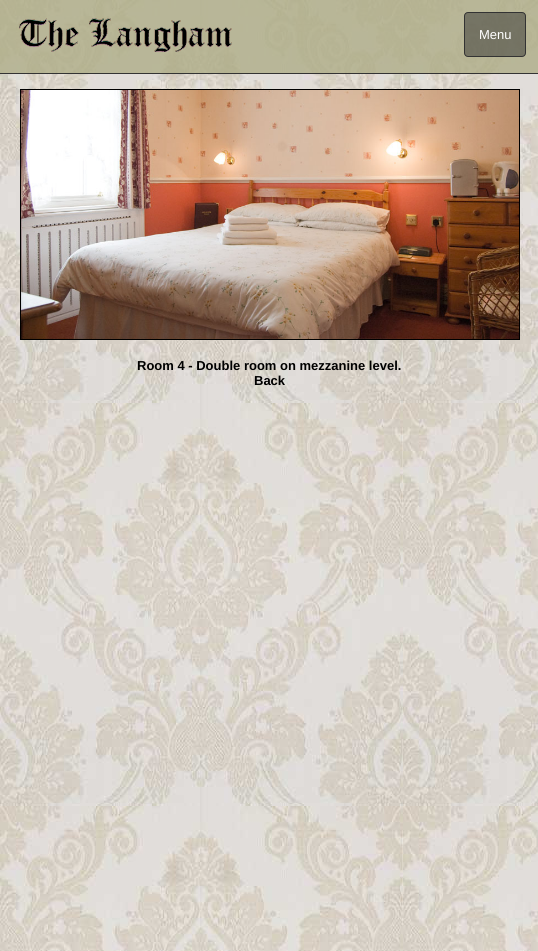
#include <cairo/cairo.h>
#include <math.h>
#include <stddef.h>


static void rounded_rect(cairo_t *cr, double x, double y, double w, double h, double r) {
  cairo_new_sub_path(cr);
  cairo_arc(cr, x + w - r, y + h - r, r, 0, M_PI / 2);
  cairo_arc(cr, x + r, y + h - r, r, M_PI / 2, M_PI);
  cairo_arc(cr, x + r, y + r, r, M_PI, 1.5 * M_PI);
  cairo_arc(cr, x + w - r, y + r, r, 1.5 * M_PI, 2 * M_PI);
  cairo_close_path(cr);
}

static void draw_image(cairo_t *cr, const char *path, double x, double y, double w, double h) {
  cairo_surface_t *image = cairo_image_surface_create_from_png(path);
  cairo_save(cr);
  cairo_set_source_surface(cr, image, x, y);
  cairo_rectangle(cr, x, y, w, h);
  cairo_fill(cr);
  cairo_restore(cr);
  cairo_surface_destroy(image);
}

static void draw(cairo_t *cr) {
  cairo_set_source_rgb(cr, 1, 1, 1);
  cairo_paint(cr);
  draw_image(cr, "images/1.png", 0, 0, 538, 951);
  cairo_set_source_rgba(cr, 174 / 255.0, 172 / 255.0, 135 / 255.0, 0.8);
  cairo_rectangle(cr, 0, 0, 538, 73);
  cairo_fill(cr);
  cairo_set_source_rgb(cr, 51 / 255.0, 51 / 255.0, 51 / 255.0);
  cairo_rectangle(cr, 0, 73, 538, 1);
  cairo_fill(cr);
  draw_image(cr, "images/2.png", 19, 18, 213, 34);
  cairo_set_source_rgba(cr, 50 / 255.0, 50 / 255.0, 50 / 255.0, 0.5);
  rounded_rect(cr, 464.5, 12.5, 61, 44, 3.5);
  cairo_fill_preserve(cr);
  cairo_set_source_rgb(cr, 51 / 255.0, 51 / 255.0, 51 / 255.0);
  cairo_set_line_width(cr, 1);
  cairo_stroke(cr);
  cairo_rectangle(cr, 20.5, 89.5, 499, 250);
  cairo_set_source_rgb(cr, 0, 0, 0);
  cairo_stroke(cr);
  draw_image(cr, "images/3.png", 21, 90, 498, 249);
  cairo_select_font_face(cr, "Liberation Sans", CAIRO_FONT_SLANT_NORMAL, CAIRO_FONT_WEIGHT_NORMAL);
  cairo_set_font_size(cr, 13);
  cairo_set_source_rgb(cr, 1, 1, 1);
  cairo_move_to(cr, 479, 39);
  cairo_show_text(cr, "Menu");
  cairo_select_font_face(cr, "Liberation Sans", CAIRO_FONT_SLANT_NORMAL, CAIRO_FONT_WEIGHT_BOLD);
  cairo_set_source_rgb(cr, 0, 0, 0);
  cairo_move_to(cr, 137, 370);
  cairo_show_text(cr, "Room 4 - Double room on mezzanine level.");
  cairo_move_to(cr, 254, 385);
  cairo_show_text(cr, "Back");
}

int main(void) {
  cairo_surface_t *surface = cairo_image_surface_create(CAIRO_FORMAT_RGB24, 538, 951);
  cairo_t *cr = cairo_create(surface);
  cairo_font_options_t *options = cairo_font_options_create();
  cairo_font_options_set_hint_metrics(options, CAIRO_HINT_METRICS_OFF);
  cairo_font_options_set_hint_style(options, CAIRO_HINT_STYLE_NONE);
  cairo_set_font_options(cr, options);
  cairo_set_miter_limit(cr, 4);
  draw(cr);
  cairo_surface_write_to_png(surface, "out.png");
  cairo_font_options_destroy(options);
  cairo_destroy(cr);
  cairo_surface_destroy(surface);
  return 0;
}
